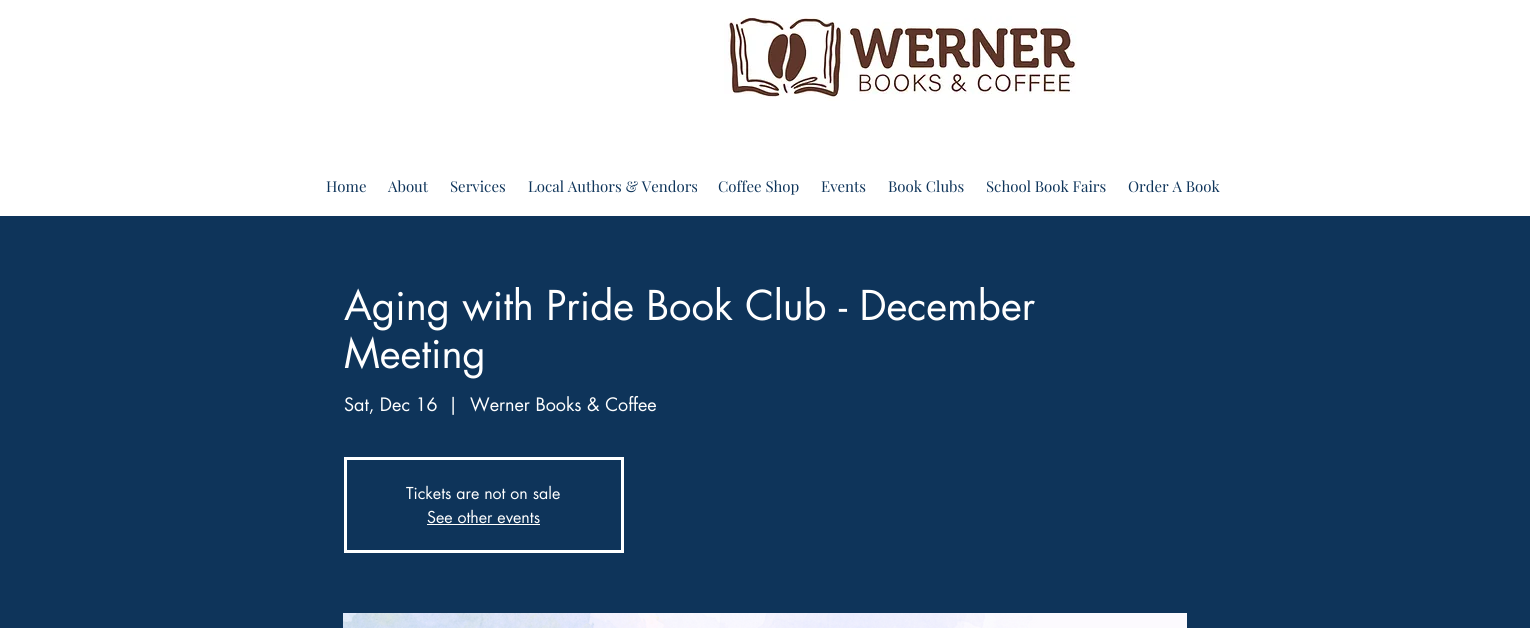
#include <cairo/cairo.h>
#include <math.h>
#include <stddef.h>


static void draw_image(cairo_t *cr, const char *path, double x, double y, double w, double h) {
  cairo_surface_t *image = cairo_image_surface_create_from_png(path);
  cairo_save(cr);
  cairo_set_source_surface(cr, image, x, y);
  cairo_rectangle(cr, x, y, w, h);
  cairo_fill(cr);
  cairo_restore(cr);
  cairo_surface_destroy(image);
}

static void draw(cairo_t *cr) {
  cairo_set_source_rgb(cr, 1, 1, 1);
  cairo_paint(cr);
  draw_image(cr, "images/1.png", 724, 16, 353, 85);
  cairo_set_source_rgb(cr, 14 / 255.0, 52 / 255.0, 90 / 255.0);
  cairo_rectangle(cr, 0, 216, 1530, 412);
  cairo_fill(cr);
  cairo_rectangle(cr, 345.5, 458.5, 277, 93);
  cairo_set_source_rgb(cr, 1, 1, 1);
  cairo_set_line_width(cr, 3);
  cairo_stroke(cr);
  cairo_rectangle(cr, 427, 524, 113, 1);
  cairo_fill(cr);
  draw_image(cr, "images/2.png", 343, 613, 844, 15);
  cairo_select_font_face(cr, "Playfair Display", CAIRO_FONT_SLANT_NORMAL, CAIRO_FONT_WEIGHT_NORMAL);
  cairo_set_font_size(cr, 15);
  cairo_set_source_rgb(cr, 14 / 255.0, 52 / 255.0, 90 / 255.0);
  cairo_move_to(cr, 326, 192);
  cairo_show_text(cr, "Home");
  cairo_move_to(cr, 388, 192);
  cairo_show_text(cr, "About");
  cairo_move_to(cr, 450, 192);
  cairo_show_text(cr, "Services");
  cairo_move_to(cr, 528, 192);
  cairo_show_text(cr, "Local Authors & Vendors");
  cairo_move_to(cr, 718, 192);
  cairo_show_text(cr, "Coffee Shop");
  cairo_move_to(cr, 821, 192);
  cairo_show_text(cr, "Events");
  cairo_move_to(cr, 888, 192);
  cairo_show_text(cr, "Book Clubs");
  cairo_move_to(cr, 986, 192);
  cairo_show_text(cr, "School Book Fairs");
  cairo_move_to(cr, 1128, 192);
  cairo_show_text(cr, "Order A Book");
  cairo_select_font_face(cr, "futura", CAIRO_FONT_SLANT_NORMAL, CAIRO_FONT_WEIGHT_NORMAL);
  cairo_set_font_size(cr, 40);
  cairo_set_source_rgb(cr, 1, 1, 1);
  cairo_move_to(cr, 344, 320);
  cairo_show_text(cr, "Aging with Pride Book Club - December");
  cairo_move_to(cr, 344, 368);
  cairo_show_text(cr, "Meeting");
  cairo_set_font_size(cr, 18);
  cairo_move_to(cr, 344, 411);
  cairo_show_text(cr, "Sat, Dec 16");
  cairo_move_to(cr, 448, 411);
  cairo_show_text(cr, "|");
  cairo_move_to(cr, 470, 411);
  cairo_show_text(cr, "Werner Books & Coffee");
  cairo_set_font_size(cr, 16);
  cairo_move_to(cr, 406, 499);
  cairo_show_text(cr, "Tickets are not on sale");
  cairo_move_to(cr, 427, 523);
  cairo_show_text(cr, "See other events");
}

int main(void) {
  cairo_surface_t *surface = cairo_image_surface_create(CAIRO_FORMAT_RGB24, 1530, 628);
  cairo_t *cr = cairo_create(surface);
  cairo_font_options_t *options = cairo_font_options_create();
  cairo_font_options_set_hint_metrics(options, CAIRO_HINT_METRICS_OFF);
  cairo_font_options_set_hint_style(options, CAIRO_HINT_STYLE_NONE);
  cairo_set_font_options(cr, options);
  cairo_set_miter_limit(cr, 4);
  draw(cr);
  cairo_surface_write_to_png(surface, "out.png");
  cairo_font_options_destroy(options);
  cairo_destroy(cr);
  cairo_surface_destroy(surface);
  return 0;
}
